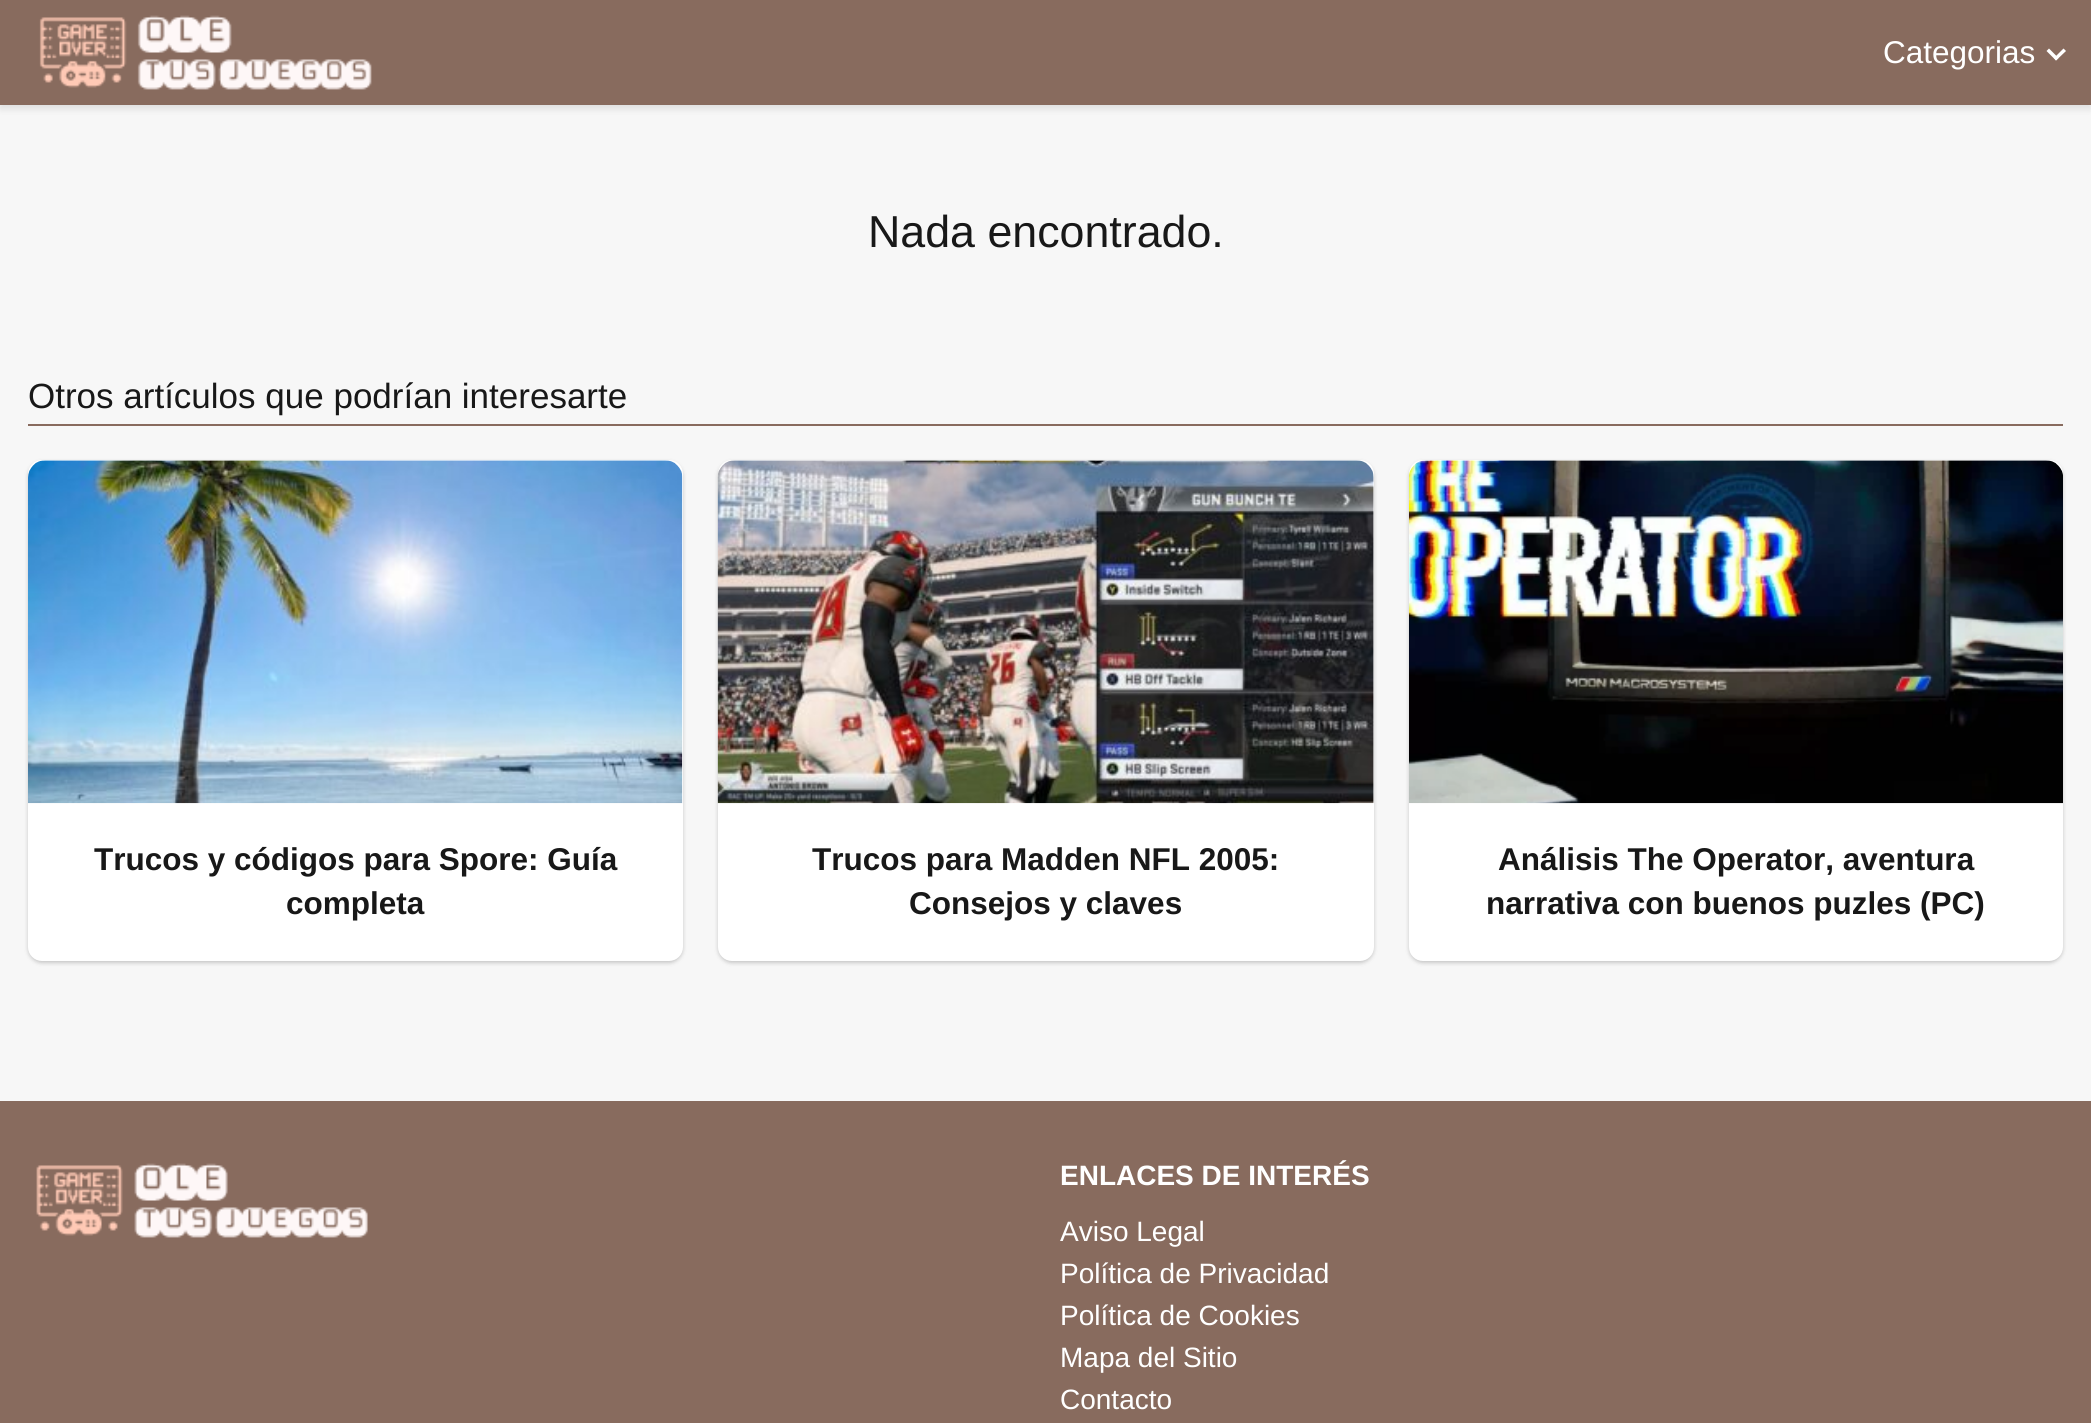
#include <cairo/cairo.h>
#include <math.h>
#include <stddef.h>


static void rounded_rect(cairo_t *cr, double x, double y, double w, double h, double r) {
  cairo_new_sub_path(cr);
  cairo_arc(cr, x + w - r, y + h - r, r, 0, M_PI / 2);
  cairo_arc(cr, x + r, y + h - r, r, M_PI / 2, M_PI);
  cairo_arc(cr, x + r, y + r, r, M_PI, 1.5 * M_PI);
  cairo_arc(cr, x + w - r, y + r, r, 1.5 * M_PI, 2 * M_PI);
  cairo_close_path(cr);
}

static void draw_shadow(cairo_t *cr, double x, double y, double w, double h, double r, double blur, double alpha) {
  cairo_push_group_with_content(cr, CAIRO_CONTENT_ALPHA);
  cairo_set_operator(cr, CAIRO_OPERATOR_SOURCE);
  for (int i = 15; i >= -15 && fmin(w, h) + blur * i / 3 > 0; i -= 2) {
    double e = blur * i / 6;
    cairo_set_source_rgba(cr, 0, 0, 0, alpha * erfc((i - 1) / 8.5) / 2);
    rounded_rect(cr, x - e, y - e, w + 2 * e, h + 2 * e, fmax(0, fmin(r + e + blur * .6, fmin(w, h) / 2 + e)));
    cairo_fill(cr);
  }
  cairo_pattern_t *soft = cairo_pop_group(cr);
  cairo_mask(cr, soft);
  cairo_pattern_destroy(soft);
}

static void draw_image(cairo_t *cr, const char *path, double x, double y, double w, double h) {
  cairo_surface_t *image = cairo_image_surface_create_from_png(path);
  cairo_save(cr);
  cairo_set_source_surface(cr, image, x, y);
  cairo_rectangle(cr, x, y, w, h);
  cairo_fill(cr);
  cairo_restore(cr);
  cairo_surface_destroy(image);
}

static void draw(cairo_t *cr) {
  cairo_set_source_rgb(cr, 247 / 255.0, 247 / 255.0, 247 / 255.0);
  cairo_paint(cr);
  cairo_set_source_rgb(cr, 0, 0, 0);
  draw_shadow(cr, 0, 4, 2091, 105, 0, 3.5, 0.1);
  cairo_set_source_rgb(cr, 136 / 255.0, 107 / 255.0, 94 / 255.0);
  cairo_rectangle(cr, 0, 0, 2091, 105);
  cairo_fill(cr);
  draw_image(cr, "images/1.png", 39, 15, 333, 75);
  cairo_set_source_rgb(cr, 1, 1, 1);
  cairo_new_path(cr);
  cairo_move_to(cr, 2063.5, 48.5);
  cairo_line_to(cr, 2066, 51);
  cairo_line_to(cr, 2056, 60.5);
  cairo_line_to(cr, 2054, 58);
  cairo_close_path(cr);
  cairo_fill(cr);
  cairo_new_path(cr);
  cairo_move_to(cr, 2049, 48.5);
  cairo_line_to(cr, 2058.5, 58);
  cairo_line_to(cr, 2056, 60.5);
  cairo_line_to(cr, 2046.5, 51);
  cairo_close_path(cr);
  cairo_fill(cr);
  cairo_set_source_rgb(cr, 136 / 255.0, 107 / 255.0, 94 / 255.0);
  cairo_rectangle(cr, 28, 424, 2035, 2);
  cairo_fill(cr);
  cairo_set_source_rgb(cr, 0, 0, 0);
  draw_shadow(cr, 28, 462, 655, 501, 14, 2, 0.2);
  cairo_set_source_rgb(cr, 1, 1, 1);
  rounded_rect(cr, 28, 460, 655, 501, 14);
  cairo_fill(cr);
  draw_image(cr, "images/2.png", 28, 460, 655, 344);
  cairo_set_source_rgb(cr, 0, 0, 0);
  draw_shadow(cr, 718, 462, 656, 501, 14, 2, 0.2);
  cairo_set_source_rgb(cr, 1, 1, 1);
  rounded_rect(cr, 718, 460, 656, 501, 14);
  cairo_fill(cr);
  draw_image(cr, "images/3.png", 717, 460, 657, 344);
  cairo_set_source_rgb(cr, 0, 0, 0);
  draw_shadow(cr, 1409, 462, 654, 501, 14, 2, 0.2);
  cairo_set_source_rgb(cr, 1, 1, 1);
  rounded_rect(cr, 1409, 460, 654, 501, 14);
  cairo_fill(cr);
  draw_image(cr, "images/4.png", 1409, 460, 654, 344);
  cairo_set_source_rgb(cr, 136 / 255.0, 107 / 255.0, 94 / 255.0);
  cairo_rectangle(cr, 0, 1101, 2091, 322);
  cairo_fill(cr);
  draw_image(cr, "images/5.png", 36, 1163, 332, 75);
  cairo_select_font_face(cr, "Liberation Sans", CAIRO_FONT_SLANT_NORMAL, CAIRO_FONT_WEIGHT_NORMAL);
  cairo_set_font_size(cr, 31.5);
  cairo_set_source_rgb(cr, 1, 1, 1);
  cairo_move_to(cr, 1883, 63);
  cairo_show_text(cr, "Categorias");
  cairo_set_font_size(cr, 44.75);
  cairo_set_source_rgb(cr, 24 / 255.0, 24 / 255.0, 24 / 255.0);
  cairo_move_to(cr, 868, 247);
  cairo_show_text(cr, "Nada encontrado.");
  cairo_set_font_size(cr, 35);
  cairo_move_to(cr, 28, 408);
  cairo_show_text(cr, "Otros artículos que podrían interesarte");
  cairo_select_font_face(cr, "Liberation Sans", CAIRO_FONT_SLANT_NORMAL, CAIRO_FONT_WEIGHT_BOLD);
  cairo_set_font_size(cr, 31.5);
  cairo_move_to(cr, 94, 870);
  cairo_show_text(cr, "Trucos y códigos para Spore: Guía");
  cairo_move_to(cr, 286, 914);
  cairo_show_text(cr, "completa");
  cairo_move_to(cr, 812, 870);
  cairo_show_text(cr, "Trucos para Madden NFL 2005:");
  cairo_move_to(cr, 909, 914);
  cairo_show_text(cr, "Consejos y claves");
  cairo_move_to(cr, 1498, 870);
  cairo_show_text(cr, "Análisis The Operator, aventura");
  cairo_move_to(cr, 1486, 914);
  cairo_show_text(cr, "narrativa con buenos puzles (PC)");
  cairo_set_font_size(cr, 28);
  cairo_set_source_rgb(cr, 1, 1, 1);
  cairo_move_to(cr, 1060, 1185);
  cairo_show_text(cr, "ENLACES DE INTERÉS");
  cairo_select_font_face(cr, "Liberation Sans", CAIRO_FONT_SLANT_NORMAL, CAIRO_FONT_WEIGHT_NORMAL);
  cairo_move_to(cr, 1060, 1241);
  cairo_show_text(cr, "Aviso Legal");
  cairo_move_to(cr, 1060, 1283);
  cairo_show_text(cr, "Política de Privacidad");
  cairo_move_to(cr, 1060, 1325);
  cairo_show_text(cr, "Política de Cookies");
  cairo_move_to(cr, 1060, 1367);
  cairo_show_text(cr, "Mapa del Sitio");
  cairo_move_to(cr, 1060, 1409);
  cairo_show_text(cr, "Contacto");
}

int main(void) {
  cairo_surface_t *surface = cairo_image_surface_create(CAIRO_FORMAT_RGB24, 2091, 1423);
  cairo_t *cr = cairo_create(surface);
  cairo_font_options_t *options = cairo_font_options_create();
  cairo_font_options_set_hint_metrics(options, CAIRO_HINT_METRICS_OFF);
  cairo_font_options_set_hint_style(options, CAIRO_HINT_STYLE_NONE);
  cairo_set_font_options(cr, options);
  cairo_set_miter_limit(cr, 4);
  draw(cr);
  cairo_surface_write_to_png(surface, "out.png");
  cairo_font_options_destroy(options);
  cairo_destroy(cr);
  cairo_surface_destroy(surface);
  return 0;
}
